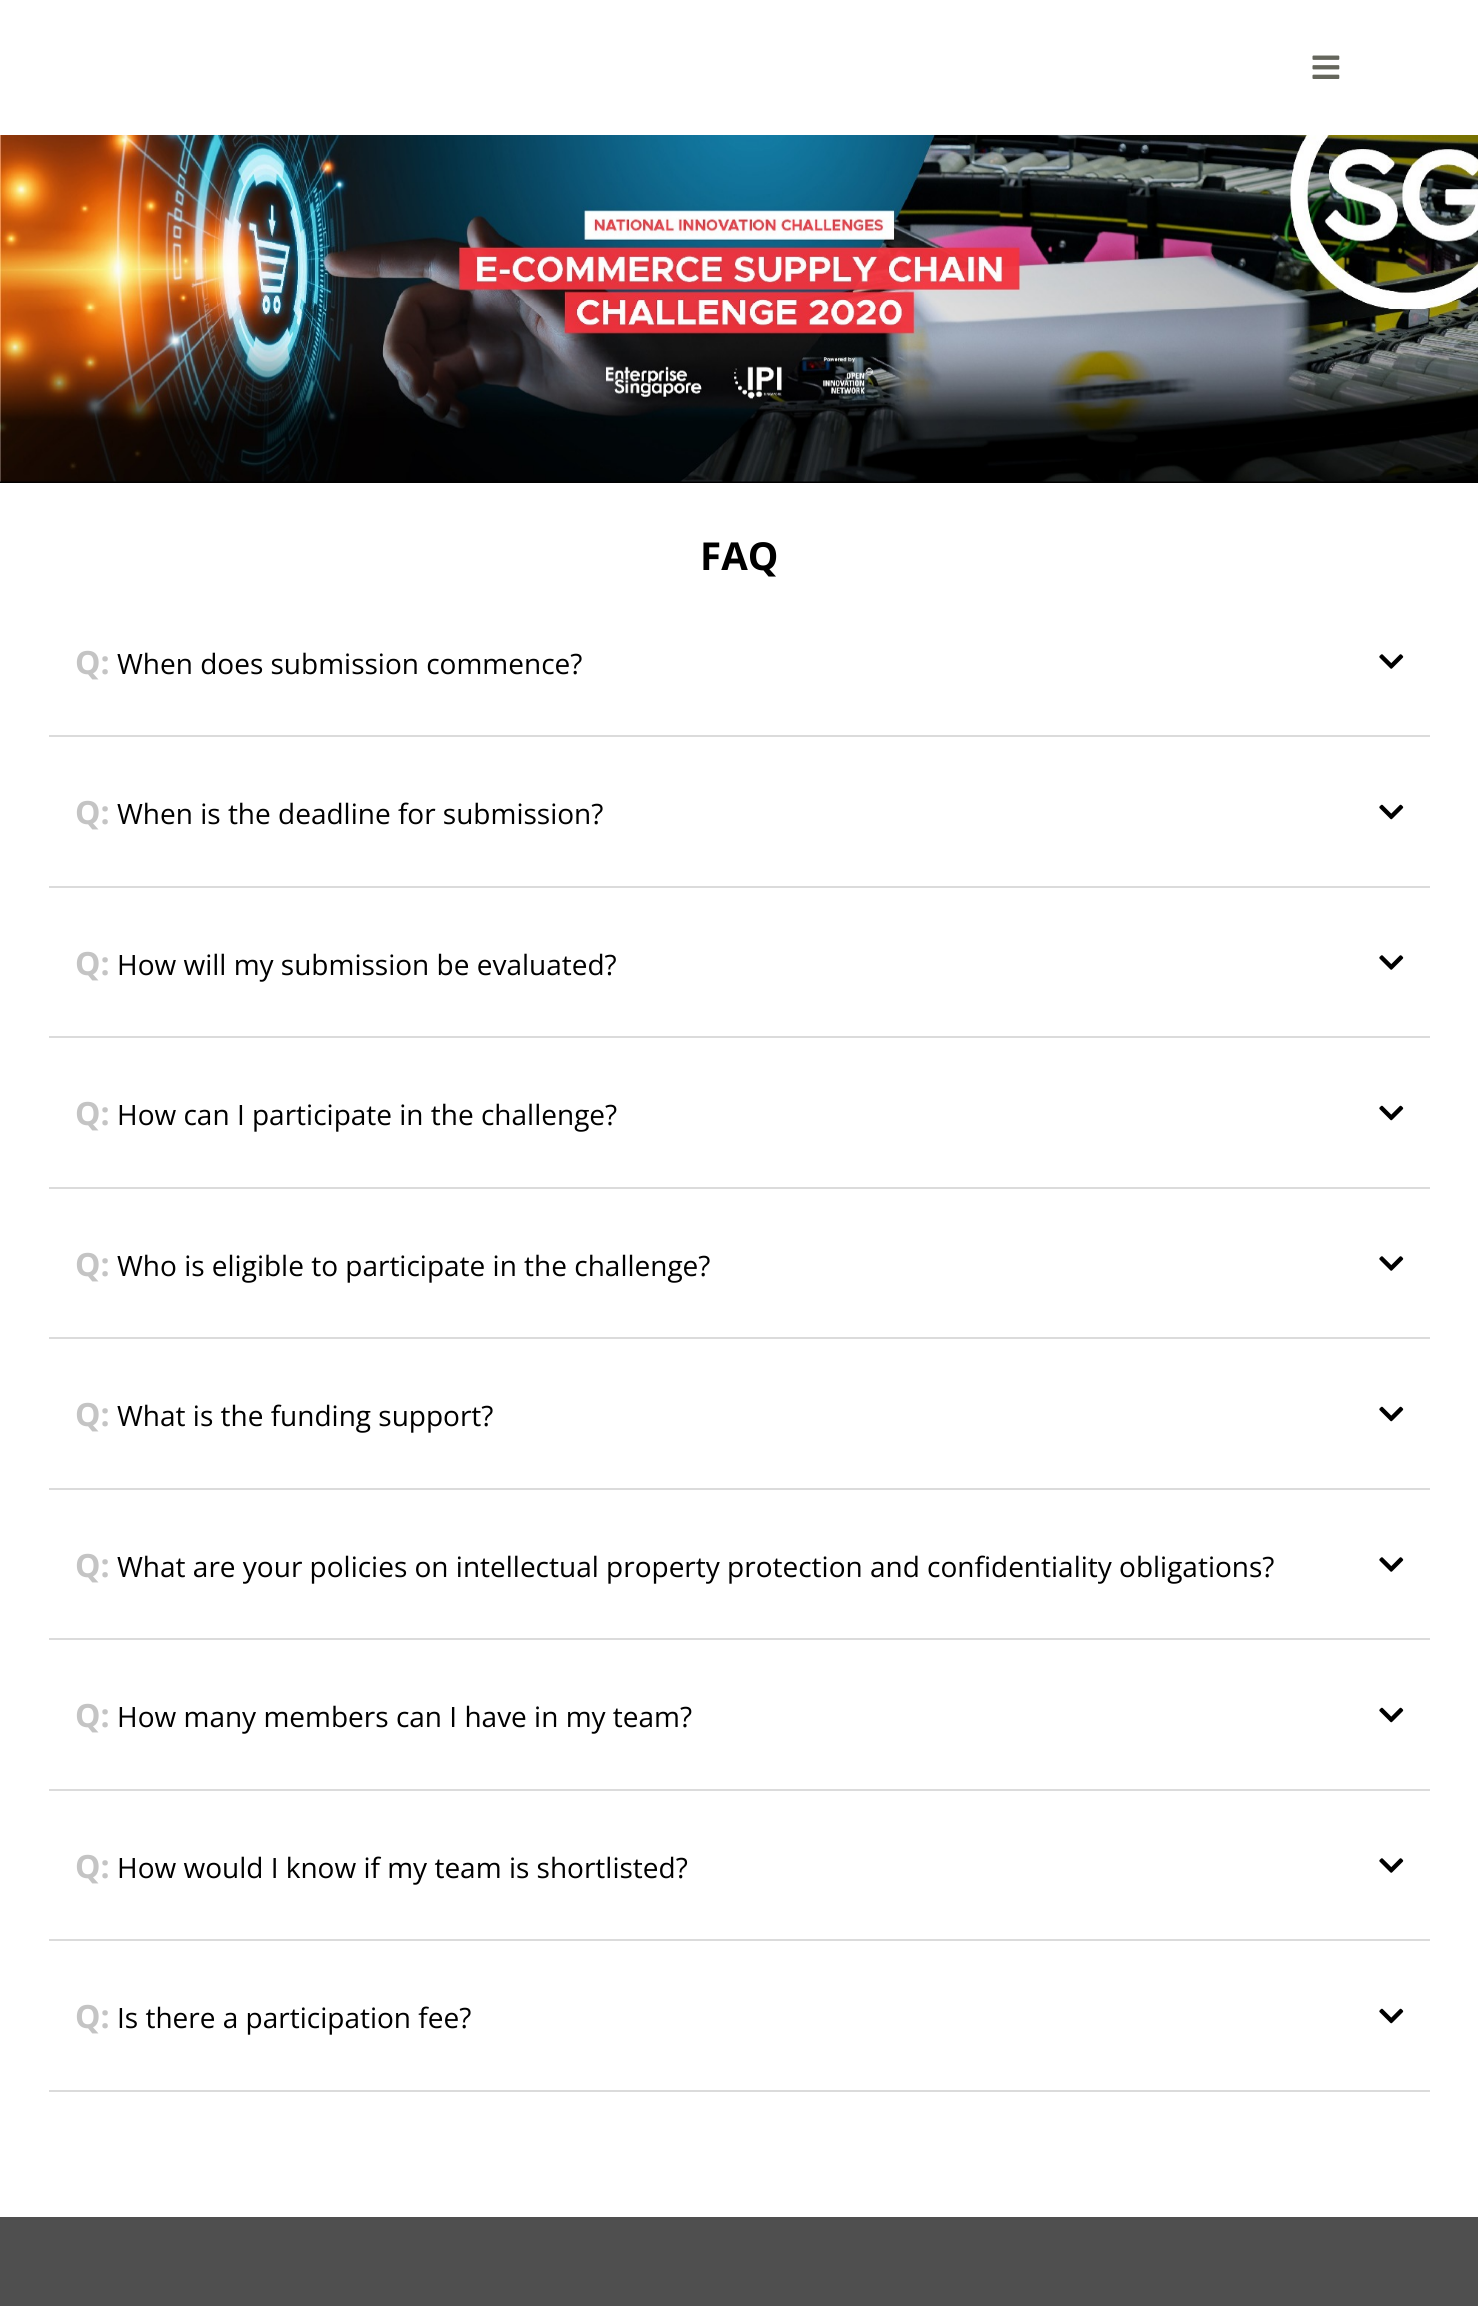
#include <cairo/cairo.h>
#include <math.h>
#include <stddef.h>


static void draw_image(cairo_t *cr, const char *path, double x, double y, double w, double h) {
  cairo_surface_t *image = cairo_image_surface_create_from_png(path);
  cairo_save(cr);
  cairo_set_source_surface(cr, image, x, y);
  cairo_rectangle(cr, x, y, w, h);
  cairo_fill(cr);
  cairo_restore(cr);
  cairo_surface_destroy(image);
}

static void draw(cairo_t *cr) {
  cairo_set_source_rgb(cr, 1, 1, 1);
  cairo_paint(cr);
  draw_image(cr, "images/1.png", 1312, 55, 28, 24);
  draw_image(cr, "images/2.png", 0, 135, 1478, 348);
  cairo_set_source_rgb(cr, 219 / 255.0, 219 / 255.0, 219 / 255.0);
  cairo_rectangle(cr, 49, 735, 1381, 2);
  cairo_fill(cr);
  draw_image(cr, "images/3.png", 1379, 654, 25, 15);
  cairo_rectangle(cr, 49, 886, 1381, 2);
  cairo_fill(cr);
  draw_image(cr, "images/4.png", 1379, 804, 25, 16);
  cairo_rectangle(cr, 49, 1036, 1381, 2);
  cairo_fill(cr);
  draw_image(cr, "images/3.png", 1379, 955, 25, 15);
  cairo_rectangle(cr, 49, 1187, 1381, 2);
  cairo_fill(cr);
  draw_image(cr, "images/4.png", 1379, 1105, 25, 16);
  cairo_rectangle(cr, 49, 1337, 1381, 2);
  cairo_fill(cr);
  draw_image(cr, "images/3.png", 1379, 1256, 25, 15);
  cairo_rectangle(cr, 49, 1488, 1381, 2);
  cairo_fill(cr);
  draw_image(cr, "images/4.png", 1379, 1406, 25, 16);
  cairo_rectangle(cr, 49, 1638, 1381, 2);
  cairo_fill(cr);
  draw_image(cr, "images/3.png", 1379, 1557, 25, 15);
  cairo_rectangle(cr, 49, 1789, 1381, 2);
  cairo_fill(cr);
  draw_image(cr, "images/4.png", 1379, 1707, 25, 16);
  cairo_rectangle(cr, 49, 1939, 1381, 2);
  cairo_fill(cr);
  draw_image(cr, "images/3.png", 1379, 1858, 25, 15);
  cairo_rectangle(cr, 49, 2090, 1381, 2);
  cairo_fill(cr);
  draw_image(cr, "images/4.png", 1379, 2008, 25, 16);
  cairo_set_source_rgb(cr, 79 / 255.0, 79 / 255.0, 79 / 255.0);
  cairo_rectangle(cr, 0, 2217, 1478, 89);
  cairo_fill(cr);
  cairo_select_font_face(cr, "Open Sans", CAIRO_FONT_SLANT_NORMAL, CAIRO_FONT_WEIGHT_BOLD);
  cairo_set_font_size(cr, 38.5);
  cairo_set_source_rgb(cr, 0, 0, 0);
  cairo_move_to(cr, 700, 570);
  cairo_show_text(cr, "FAQ");
  cairo_set_font_size(cr, 32);
  cairo_set_source_rgb(cr, 196 / 255.0, 196 / 255.0, 196 / 255.0);
  cairo_move_to(cr, 75, 674);
  cairo_show_text(cr, "Q:");
  cairo_select_font_face(cr, "Open Sans", CAIRO_FONT_SLANT_NORMAL, CAIRO_FONT_WEIGHT_NORMAL);
  cairo_set_font_size(cr, 28);
  cairo_set_source_rgb(cr, 0, 0, 0);
  cairo_move_to(cr, 117, 674);
  cairo_show_text(cr, "When does submission commence?");
  cairo_select_font_face(cr, "Open Sans", CAIRO_FONT_SLANT_NORMAL, CAIRO_FONT_WEIGHT_BOLD);
  cairo_set_font_size(cr, 32);
  cairo_set_source_rgb(cr, 196 / 255.0, 196 / 255.0, 196 / 255.0);
  cairo_move_to(cr, 75, 824);
  cairo_show_text(cr, "Q:");
  cairo_select_font_face(cr, "Open Sans", CAIRO_FONT_SLANT_NORMAL, CAIRO_FONT_WEIGHT_NORMAL);
  cairo_set_font_size(cr, 28);
  cairo_set_source_rgb(cr, 0, 0, 0);
  cairo_move_to(cr, 117, 824);
  cairo_show_text(cr, "When is the deadline for submission?");
  cairo_select_font_face(cr, "Open Sans", CAIRO_FONT_SLANT_NORMAL, CAIRO_FONT_WEIGHT_BOLD);
  cairo_set_font_size(cr, 32);
  cairo_set_source_rgb(cr, 196 / 255.0, 196 / 255.0, 196 / 255.0);
  cairo_move_to(cr, 75, 975);
  cairo_show_text(cr, "Q:");
  cairo_select_font_face(cr, "Open Sans", CAIRO_FONT_SLANT_NORMAL, CAIRO_FONT_WEIGHT_NORMAL);
  cairo_set_font_size(cr, 28);
  cairo_set_source_rgb(cr, 0, 0, 0);
  cairo_move_to(cr, 117, 975);
  cairo_show_text(cr, "How will my submission be evaluated?");
  cairo_select_font_face(cr, "Open Sans", CAIRO_FONT_SLANT_NORMAL, CAIRO_FONT_WEIGHT_BOLD);
  cairo_set_font_size(cr, 32);
  cairo_set_source_rgb(cr, 196 / 255.0, 196 / 255.0, 196 / 255.0);
  cairo_move_to(cr, 75, 1125);
  cairo_show_text(cr, "Q:");
  cairo_select_font_face(cr, "Open Sans", CAIRO_FONT_SLANT_NORMAL, CAIRO_FONT_WEIGHT_NORMAL);
  cairo_set_font_size(cr, 28);
  cairo_set_source_rgb(cr, 0, 0, 0);
  cairo_move_to(cr, 117, 1125);
  cairo_show_text(cr, "How can I participate in the challenge?");
  cairo_select_font_face(cr, "Open Sans", CAIRO_FONT_SLANT_NORMAL, CAIRO_FONT_WEIGHT_BOLD);
  cairo_set_font_size(cr, 32);
  cairo_set_source_rgb(cr, 196 / 255.0, 196 / 255.0, 196 / 255.0);
  cairo_move_to(cr, 75, 1276);
  cairo_show_text(cr, "Q:");
  cairo_select_font_face(cr, "Open Sans", CAIRO_FONT_SLANT_NORMAL, CAIRO_FONT_WEIGHT_NORMAL);
  cairo_set_font_size(cr, 28);
  cairo_set_source_rgb(cr, 0, 0, 0);
  cairo_move_to(cr, 117, 1276);
  cairo_show_text(cr, "Who is eligible to participate in the challenge?");
  cairo_select_font_face(cr, "Open Sans", CAIRO_FONT_SLANT_NORMAL, CAIRO_FONT_WEIGHT_BOLD);
  cairo_set_font_size(cr, 32);
  cairo_set_source_rgb(cr, 196 / 255.0, 196 / 255.0, 196 / 255.0);
  cairo_move_to(cr, 75, 1426);
  cairo_show_text(cr, "Q:");
  cairo_select_font_face(cr, "Open Sans", CAIRO_FONT_SLANT_NORMAL, CAIRO_FONT_WEIGHT_NORMAL);
  cairo_set_font_size(cr, 28);
  cairo_set_source_rgb(cr, 0, 0, 0);
  cairo_move_to(cr, 117, 1426);
  cairo_show_text(cr, "What is the funding support?");
  cairo_select_font_face(cr, "Open Sans", CAIRO_FONT_SLANT_NORMAL, CAIRO_FONT_WEIGHT_BOLD);
  cairo_set_font_size(cr, 32);
  cairo_set_source_rgb(cr, 196 / 255.0, 196 / 255.0, 196 / 255.0);
  cairo_move_to(cr, 75, 1577);
  cairo_show_text(cr, "Q:");
  cairo_select_font_face(cr, "Open Sans", CAIRO_FONT_SLANT_NORMAL, CAIRO_FONT_WEIGHT_NORMAL);
  cairo_set_font_size(cr, 28);
  cairo_set_source_rgb(cr, 0, 0, 0);
  cairo_move_to(cr, 117, 1577);
  cairo_show_text(cr, "What are your policies on intellectual property protection and confidentiality obligations?");
  cairo_select_font_face(cr, "Open Sans", CAIRO_FONT_SLANT_NORMAL, CAIRO_FONT_WEIGHT_BOLD);
  cairo_set_font_size(cr, 32);
  cairo_set_source_rgb(cr, 196 / 255.0, 196 / 255.0, 196 / 255.0);
  cairo_move_to(cr, 75, 1727);
  cairo_show_text(cr, "Q:");
  cairo_select_font_face(cr, "Open Sans", CAIRO_FONT_SLANT_NORMAL, CAIRO_FONT_WEIGHT_NORMAL);
  cairo_set_font_size(cr, 28);
  cairo_set_source_rgb(cr, 0, 0, 0);
  cairo_move_to(cr, 117, 1727);
  cairo_show_text(cr, "How many members can I have in my team?");
  cairo_select_font_face(cr, "Open Sans", CAIRO_FONT_SLANT_NORMAL, CAIRO_FONT_WEIGHT_BOLD);
  cairo_set_font_size(cr, 32);
  cairo_set_source_rgb(cr, 196 / 255.0, 196 / 255.0, 196 / 255.0);
  cairo_move_to(cr, 75, 1878);
  cairo_show_text(cr, "Q:");
  cairo_select_font_face(cr, "Open Sans", CAIRO_FONT_SLANT_NORMAL, CAIRO_FONT_WEIGHT_NORMAL);
  cairo_set_font_size(cr, 28);
  cairo_set_source_rgb(cr, 0, 0, 0);
  cairo_move_to(cr, 117, 1878);
  cairo_show_text(cr, "How would I know if my team is shortlisted?");
  cairo_select_font_face(cr, "Open Sans", CAIRO_FONT_SLANT_NORMAL, CAIRO_FONT_WEIGHT_BOLD);
  cairo_set_font_size(cr, 32);
  cairo_set_source_rgb(cr, 196 / 255.0, 196 / 255.0, 196 / 255.0);
  cairo_move_to(cr, 75, 2028);
  cairo_show_text(cr, "Q:");
  cairo_select_font_face(cr, "Open Sans", CAIRO_FONT_SLANT_NORMAL, CAIRO_FONT_WEIGHT_NORMAL);
  cairo_set_font_size(cr, 28);
  cairo_set_source_rgb(cr, 0, 0, 0);
  cairo_move_to(cr, 117, 2028);
  cairo_show_text(cr, "Is there a participation fee?");
}

int main(void) {
  cairo_surface_t *surface = cairo_image_surface_create(CAIRO_FORMAT_RGB24, 1478, 2306);
  cairo_t *cr = cairo_create(surface);
  cairo_font_options_t *options = cairo_font_options_create();
  cairo_font_options_set_hint_metrics(options, CAIRO_HINT_METRICS_OFF);
  cairo_font_options_set_hint_style(options, CAIRO_HINT_STYLE_NONE);
  cairo_set_font_options(cr, options);
  cairo_set_miter_limit(cr, 4);
  draw(cr);
  cairo_surface_write_to_png(surface, "out.png");
  cairo_font_options_destroy(options);
  cairo_destroy(cr);
  cairo_surface_destroy(surface);
  return 0;
}
